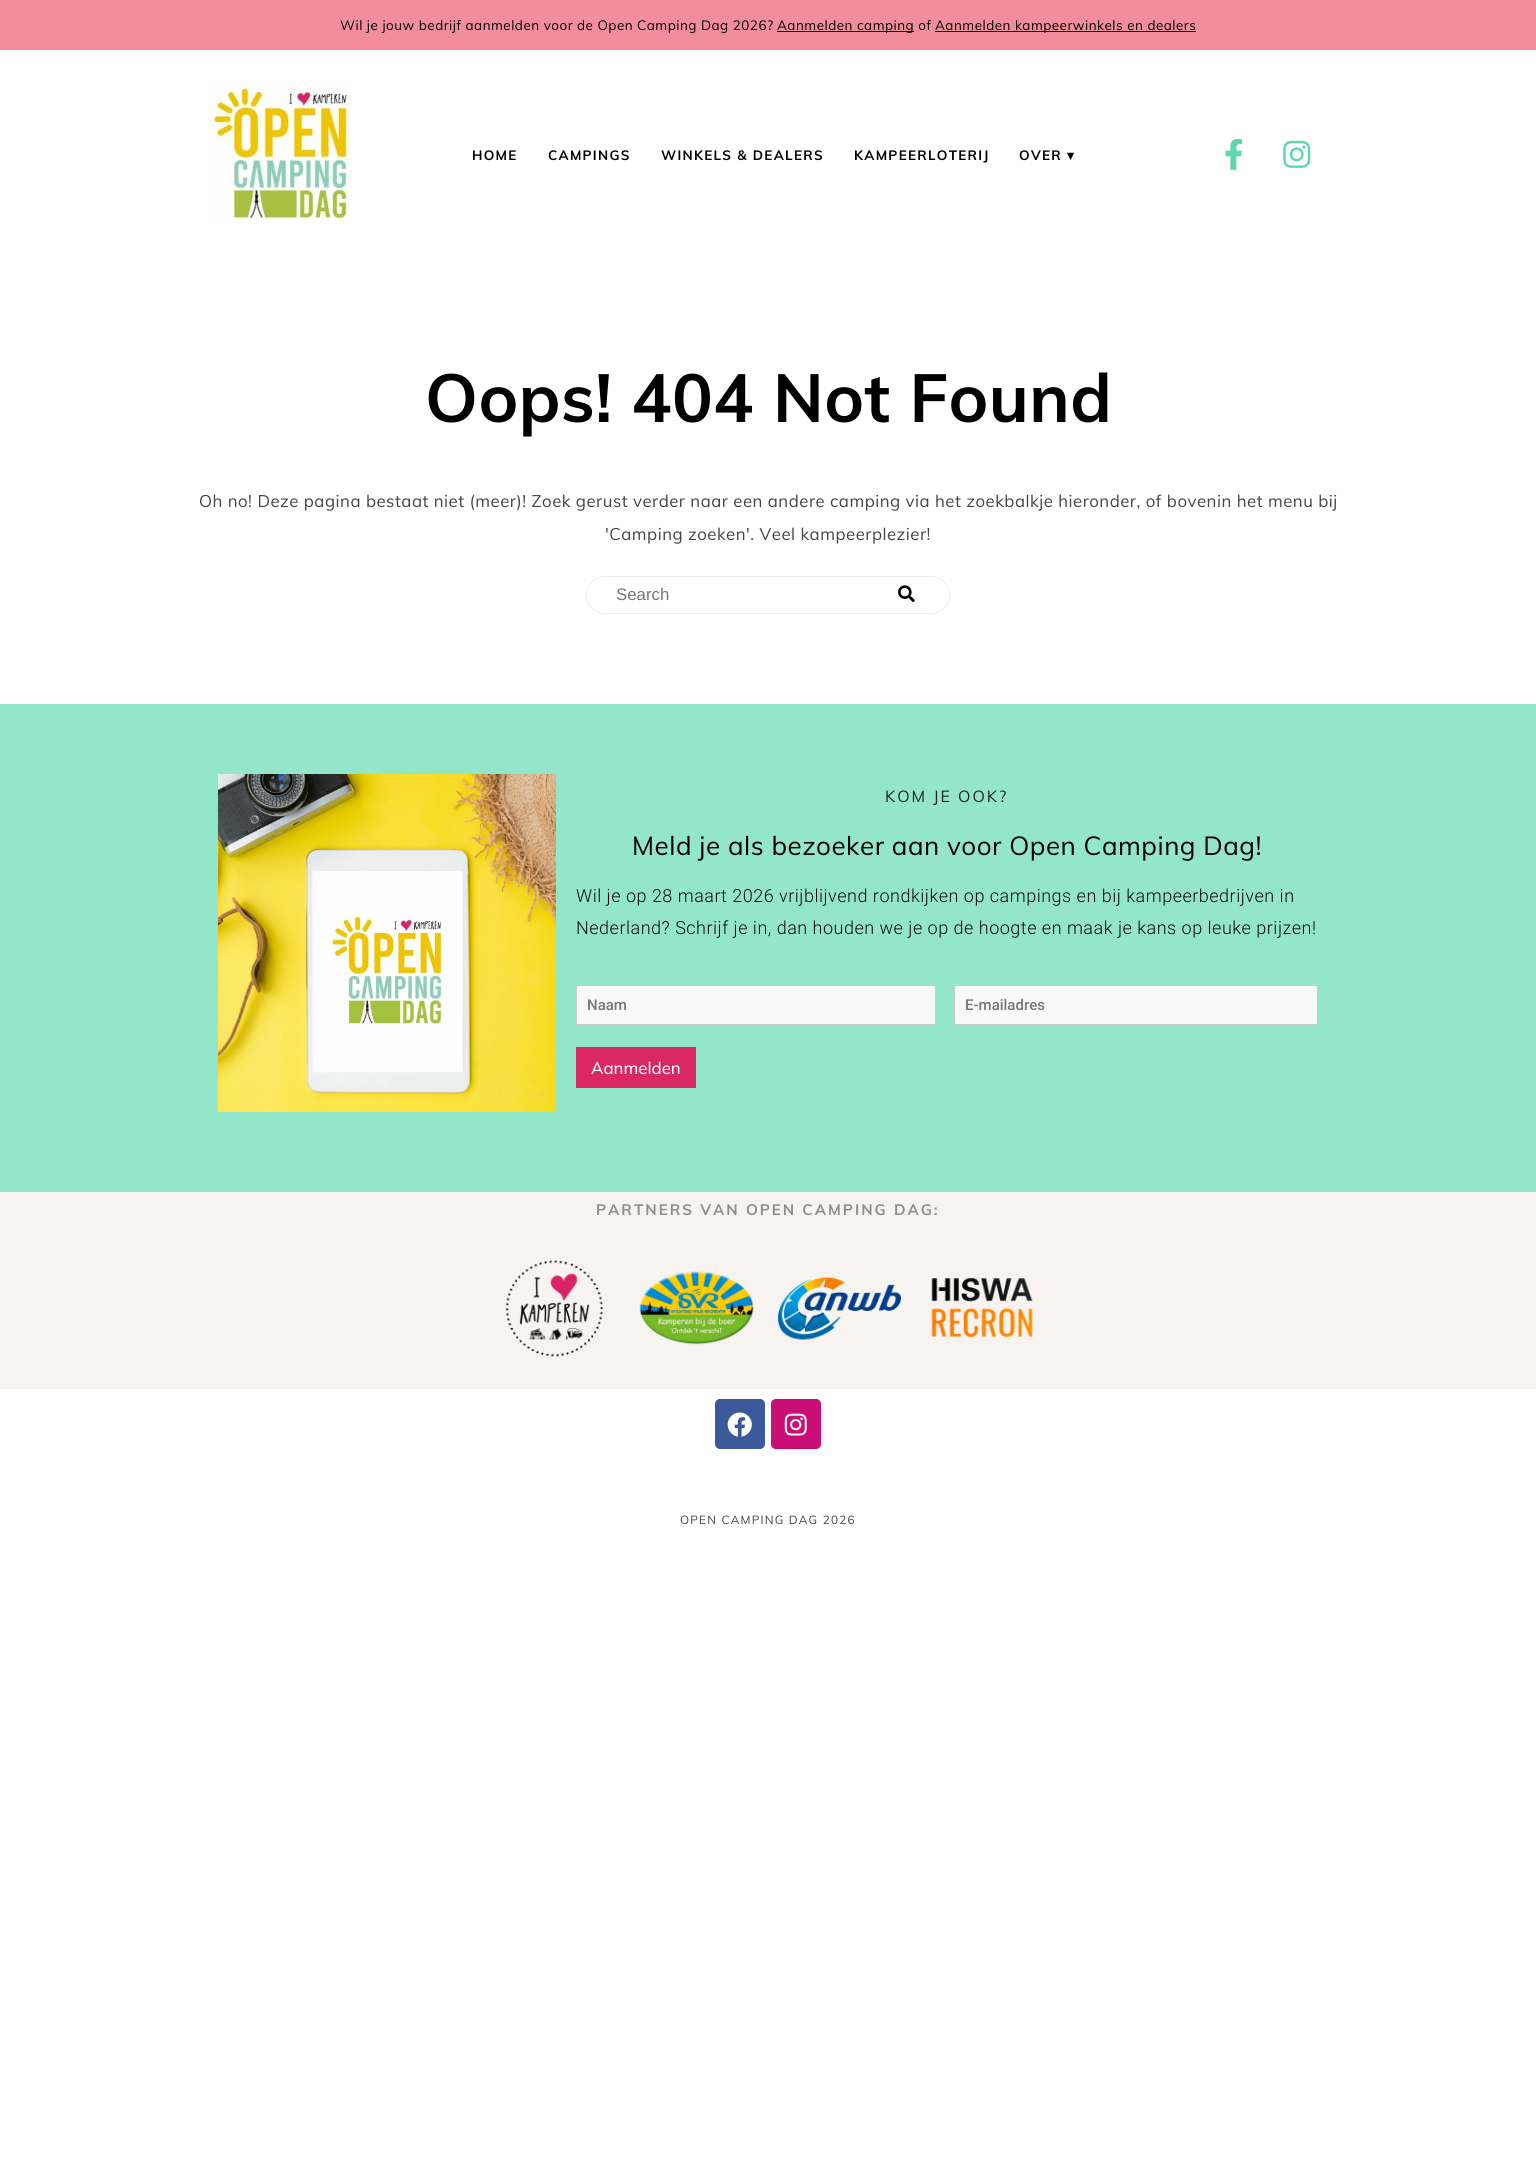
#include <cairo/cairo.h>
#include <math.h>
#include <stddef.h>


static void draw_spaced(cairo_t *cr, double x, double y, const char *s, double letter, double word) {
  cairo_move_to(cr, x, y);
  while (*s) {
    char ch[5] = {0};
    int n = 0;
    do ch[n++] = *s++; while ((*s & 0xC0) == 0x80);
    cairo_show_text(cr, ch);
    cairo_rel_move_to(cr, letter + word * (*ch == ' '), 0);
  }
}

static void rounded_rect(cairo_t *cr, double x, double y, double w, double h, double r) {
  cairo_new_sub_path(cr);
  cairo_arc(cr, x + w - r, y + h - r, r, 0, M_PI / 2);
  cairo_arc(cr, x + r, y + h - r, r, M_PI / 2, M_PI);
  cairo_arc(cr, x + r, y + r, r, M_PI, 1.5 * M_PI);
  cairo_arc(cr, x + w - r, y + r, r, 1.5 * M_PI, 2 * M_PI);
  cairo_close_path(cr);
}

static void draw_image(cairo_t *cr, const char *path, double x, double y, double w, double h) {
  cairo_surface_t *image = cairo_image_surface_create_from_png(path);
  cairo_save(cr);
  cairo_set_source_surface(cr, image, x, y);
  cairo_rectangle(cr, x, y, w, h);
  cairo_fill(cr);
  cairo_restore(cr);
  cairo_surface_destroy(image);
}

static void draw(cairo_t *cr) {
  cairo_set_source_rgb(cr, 1, 1, 1);
  cairo_paint(cr);
  cairo_set_source_rgb(cr, 241 / 255.0, 141 / 255.0, 158 / 255.0);
  cairo_rectangle(cr, 0, 0, 1536, 50);
  cairo_fill(cr);
  cairo_set_source_rgb(cr, 0, 0, 0);
  cairo_rectangle(cr, 777, 31, 137, 1);
  cairo_fill(cr);
  cairo_rectangle(cr, 935, 31, 261, 1);
  cairo_fill(cr);
  draw_image(cr, "images/1.png", 208, 80, 145, 145);
  draw_image(cr, "images/2.png", 1225, 138, 18, 32);
  draw_image(cr, "images/3.png", 1283, 140, 28, 28);
  rounded_rect(cr, 586.5, 576.5, 363, 37, 18.5);
  cairo_set_source_rgb(cr, 238 / 255.0, 238 / 255.0, 238 / 255.0);
  cairo_set_line_width(cr, 1);
  cairo_stroke(cr);
  draw_image(cr, "images/4.png", 898, 585, 17, 17);
  cairo_set_source_rgb(cr, 147 / 255.0, 230 / 255.0, 201 / 255.0);
  cairo_rectangle(cr, 0, 704, 1536, 488);
  cairo_fill(cr);
  draw_image(cr, "images/5.png", 218, 774, 338, 338);
  cairo_set_source_rgb(cr, 249 / 255.0, 249 / 255.0, 249 / 255.0);
  cairo_rectangle(cr, 576.5, 985.5, 359, 39);
  cairo_fill_preserve(cr);
  cairo_set_source_rgb(cr, 204 / 255.0, 204 / 255.0, 204 / 255.0);
  cairo_stroke(cr);
  cairo_set_source_rgb(cr, 249 / 255.0, 249 / 255.0, 249 / 255.0);
  cairo_rectangle(cr, 954.5, 985.5, 363, 39);
  cairo_fill_preserve(cr);
  cairo_set_source_rgb(cr, 204 / 255.0, 204 / 255.0, 204 / 255.0);
  cairo_stroke(cr);
  cairo_set_source_rgb(cr, 218 / 255.0, 40 / 255.0, 100 / 255.0);
  cairo_rectangle(cr, 576, 1047, 120, 41);
  cairo_fill(cr);
  cairo_set_source_rgb(cr, 246 / 255.0, 243 / 255.0, 240 / 255.0);
  cairo_rectangle(cr, 0, 1192, 1536, 197);
  cairo_fill(cr);
  draw_image(cr, "images/6.png", 505, 1260, 98, 97);
  draw_image(cr, "images/7.png", 639, 1271, 115, 74);
  draw_image(cr, "images/8.png", 778, 1276, 123, 64);
  draw_image(cr, "images/9.png", 931, 1277, 102, 60);
  cairo_set_source_rgb(cr, 59 / 255.0, 89 / 255.0, 152 / 255.0);
  rounded_rect(cr, 715, 1399, 50, 50, 5);
  cairo_fill(cr);
  draw_image(cr, "images/10.png", 727, 1412, 25, 25);
  cairo_set_source_rgb(cr, 201 / 255.0, 14 / 255.0, 118 / 255.0);
  rounded_rect(cr, 771, 1399, 50, 50, 5);
  cairo_fill(cr);
  draw_image(cr, "images/11.png", 784, 1413, 23, 23);
  cairo_select_font_face(cr, "Muli", CAIRO_FONT_SLANT_NORMAL, CAIRO_FONT_WEIGHT_NORMAL);
  cairo_set_font_size(cr, 13.45);
  cairo_set_source_rgb(cr, 0, 0, 0);
  draw_spaced(cr, 340, 30, "Wil je jouw bedrijf aanmelden voor de Open Camping Dag 2026?", 0.5, 0);
  draw_spaced(cr, 777, 30, "Aanmelden camping of", 0.5, 0);
  draw_spaced(cr, 935, 30, "Aanmelden kampeerwinkels en dealers", 0.5, 0);
  cairo_select_font_face(cr, "Muli", CAIRO_FONT_SLANT_NORMAL, CAIRO_FONT_WEIGHT_BOLD);
  draw_spaced(cr, 472, 160, "HOME", 1.3, 0);
  draw_spaced(cr, 548, 160, "CAMPINGS", 1.3, 0);
  draw_spaced(cr, 661, 160, "WINKELS & DEALERS", 1.3, 0);
  draw_spaced(cr, 854, 160, "KAMPEERLOTERIJ", 1.3, 0);
  draw_spaced(cr, 1019, 160, "OVER", 1.3, 0);
  cairo_select_font_face(cr, "DejaVu Sans", CAIRO_FONT_SLANT_NORMAL, CAIRO_FONT_WEIGHT_BOLD);
  draw_spaced(cr, 1067, 160, "▾", 1.3, 0);
  cairo_select_font_face(cr, "Muli", CAIRO_FONT_SLANT_NORMAL, CAIRO_FONT_WEIGHT_BOLD);
  cairo_set_font_size(cr, 67.25);
  draw_spaced(cr, 425, 422, "Oops! 404 Not Found", 0.5, 0);
  cairo_select_font_face(cr, "Muli", CAIRO_FONT_SLANT_NORMAL, CAIRO_FONT_WEIGHT_NORMAL);
  cairo_set_font_size(cr, 16.8);
  cairo_set_source_rgb(cr, 68 / 255.0, 68 / 255.0, 68 / 255.0);
  draw_spaced(cr, 199, 507, "Oh no! Deze pagina bestaat niet (meer)! Zoek gerust verder naar een andere camping via het zoekbalkje hieronder, of bovenin het menu bij", 0.5, 0);
  draw_spaced(cr, 605, 540, "'Camping zoeken'. Veel kampeerplezier!", 0.5, 0);
  cairo_select_font_face(cr, "Liberation Sans", CAIRO_FONT_SLANT_NORMAL, CAIRO_FONT_WEIGHT_NORMAL);
  cairo_set_source_rgb(cr, 117 / 255.0, 117 / 255.0, 117 / 255.0);
  cairo_move_to(cr, 616, 600);
  cairo_show_text(cr, "Search");
  cairo_select_font_face(cr, "Muli", CAIRO_FONT_SLANT_NORMAL, CAIRO_FONT_WEIGHT_NORMAL);
  cairo_set_font_size(cr, 16);
  cairo_set_source_rgb(cr, 34 / 255.0, 34 / 255.0, 34 / 255.0);
  draw_spaced(cr, 885, 802, "KOM JE OOK?", 2, 0);
  cairo_set_font_size(cr, 26);
  cairo_set_source_rgb(cr, 0, 0, 0);
  draw_spaced(cr, 632, 855, "Meld je als bezoeker aan voor Open Camping Dag!", 0.5, 0);
  cairo_select_font_face(cr, "Roboto Light", CAIRO_FONT_SLANT_NORMAL, CAIRO_FONT_WEIGHT_NORMAL);
  cairo_set_font_size(cr, 18);
  cairo_set_source_rgb(cr, 12 / 255.0, 12 / 255.0, 12 / 255.0);
  draw_spaced(cr, 576, 902, "Wil je op 28 maart 2026 vrijblijvend rondkijken op campings en bij kampeerbedrijven in", 0.5, 0);
  draw_spaced(cr, 576, 934, "Nederland? Schrijf je in, dan houden we je op de hoogte en maak je kans op leuke prijzen!", 0.5, 0);
  cairo_select_font_face(cr, "Roboto Medium", CAIRO_FONT_SLANT_NORMAL, CAIRO_FONT_WEIGHT_NORMAL);
  cairo_set_font_size(cr, 15);
  cairo_set_source_rgb(cr, 117 / 255.0, 117 / 255.0, 117 / 255.0);
  cairo_move_to(cr, 587, 1010);
  cairo_show_text(cr, "Naam");
  cairo_move_to(cr, 965, 1010);
  cairo_show_text(cr, "E-mailadres");
  cairo_select_font_face(cr, "Mulish Medium", CAIRO_FONT_SLANT_NORMAL, CAIRO_FONT_WEIGHT_NORMAL);
  cairo_set_font_size(cr, 16.8);
  cairo_set_source_rgb(cr, 1, 1, 1);
  cairo_move_to(cr, 591, 1074);
  cairo_show_text(cr, "Aanmelden");
  cairo_select_font_face(cr, "Muli", CAIRO_FONT_SLANT_NORMAL, CAIRO_FONT_WEIGHT_BOLD);
  cairo_set_font_size(cr, 15.1);
  cairo_set_source_rgb(cr, 142 / 255.0, 142 / 255.0, 142 / 255.0);
  draw_spaced(cr, 596, 1215, "PARTNERS VAN OPEN CAMPING DAG:", 2, 0);
  cairo_select_font_face(cr, "Muli", CAIRO_FONT_SLANT_NORMAL, CAIRO_FONT_WEIGHT_NORMAL);
  cairo_set_font_size(cr, 11.75);
  cairo_set_source_rgb(cr, 68 / 255.0, 68 / 255.0, 68 / 255.0);
  draw_spaced(cr, 680, 1524, "OPEN CAMPING DAG 2026", 1.2, 0);
}

int main(void) {
  cairo_surface_t *surface = cairo_image_surface_create(CAIRO_FORMAT_RGB24, 1536, 2164);
  cairo_t *cr = cairo_create(surface);
  cairo_font_options_t *options = cairo_font_options_create();
  cairo_font_options_set_hint_metrics(options, CAIRO_HINT_METRICS_OFF);
  cairo_font_options_set_hint_style(options, CAIRO_HINT_STYLE_NONE);
  cairo_set_font_options(cr, options);
  cairo_set_miter_limit(cr, 4);
  draw(cr);
  cairo_surface_write_to_png(surface, "out.png");
  cairo_font_options_destroy(options);
  cairo_destroy(cr);
  cairo_surface_destroy(surface);
  return 0;
}
